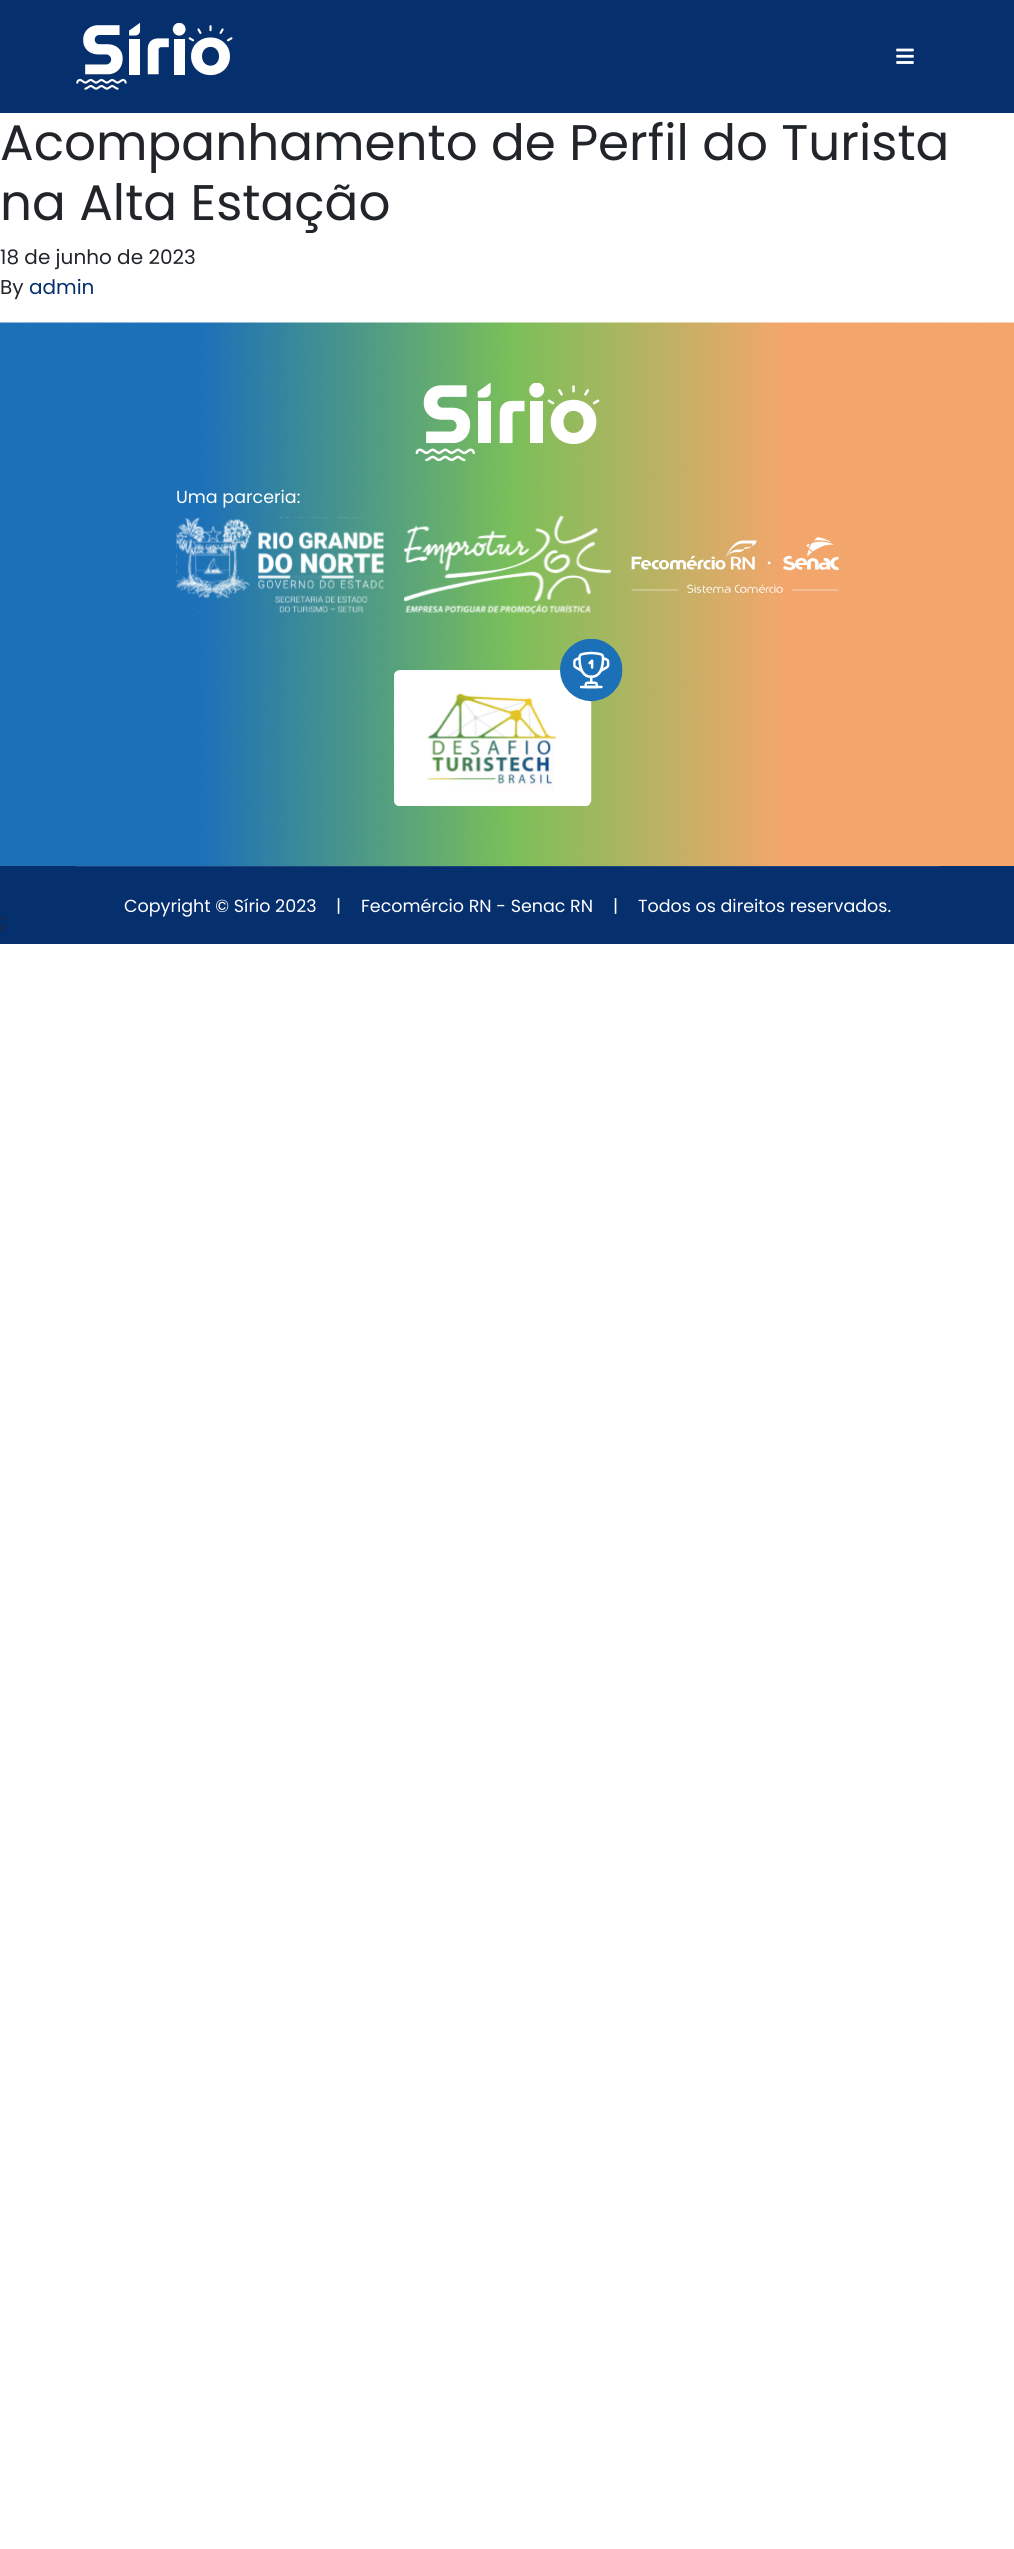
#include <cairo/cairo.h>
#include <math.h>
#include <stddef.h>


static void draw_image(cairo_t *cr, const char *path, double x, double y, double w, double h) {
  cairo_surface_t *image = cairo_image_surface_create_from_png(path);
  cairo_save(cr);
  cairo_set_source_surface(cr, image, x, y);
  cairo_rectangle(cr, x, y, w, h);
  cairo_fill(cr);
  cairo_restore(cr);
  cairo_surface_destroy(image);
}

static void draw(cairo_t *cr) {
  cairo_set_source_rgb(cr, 1, 1, 1);
  cairo_paint(cr);
  cairo_set_source_rgb(cr, 5 / 255.0, 47 / 255.0, 109 / 255.0);
  cairo_rectangle(cr, 0, 0, 1014, 113);
  cairo_fill(cr);
  draw_image(cr, "images/1.png", 76, 23, 157, 67);
  draw_image(cr, "images/2.png", 896, 48, 18, 16);
  draw_image(cr, "images/3.png", 0, 322, 1014, 544);
  draw_image(cr, "images/4.png", 415, 383, 185, 78);
  draw_image(cr, "images/5.png", 176, 517, 208, 96);
  draw_image(cr, "images/6.png", 404, 515, 207, 100);
  draw_image(cr, "images/7.png", 631, 537, 208, 56);
  draw_image(cr, "images/8.png", 394, 639, 229, 167);
  cairo_rectangle(cr, 0, 866, 1014, 78);
  cairo_fill(cr);
  cairo_set_source_rgb(cr, 30 / 255.0, 68 / 255.0, 124 / 255.0);
  cairo_rectangle(cr, 76, 866, 863, 1);
  cairo_fill(cr);
  cairo_select_font_face(cr, "Poppins", CAIRO_FONT_SLANT_NORMAL, CAIRO_FONT_WEIGHT_NORMAL);
  cairo_set_font_size(cr, 50);
  cairo_set_source_rgb(cr, 33 / 255.0, 37 / 255.0, 41 / 255.0);
  cairo_move_to(cr, 0, 160);
  cairo_show_text(cr, "Acompanhamento de Perfil do Turista");
  cairo_move_to(cr, 0, 220);
  cairo_show_text(cr, "na Alta Estação");
  cairo_set_font_size(cr, 20);
  cairo_move_to(cr, 0, 264);
  cairo_show_text(cr, "18 de junho de 2023");
  cairo_move_to(cr, 0, 294);
  cairo_show_text(cr, "By");
  cairo_set_source_rgb(cr, 5 / 255.0, 47 / 255.0, 109 / 255.0);
  cairo_move_to(cr, 29, 294);
  cairo_show_text(cr, "admin");
  cairo_set_font_size(cr, 17.5);
  cairo_set_source_rgb(cr, 1, 1, 1);
  cairo_move_to(cr, 176, 503);
  cairo_show_text(cr, "Uma parceria:");
  cairo_move_to(cr, 124, 912);
  cairo_show_text(cr, "Copyright © Sírio 2023");
  cairo_move_to(cr, 336, 912);
  cairo_show_text(cr, "|");
  cairo_move_to(cr, 361, 912);
  cairo_show_text(cr, "Fecomércio RN - Senac RN");
  cairo_move_to(cr, 613, 912);
  cairo_show_text(cr, "|");
  cairo_move_to(cr, 638, 912);
  cairo_show_text(cr, "Todos os direitos reservados.");
  cairo_set_font_size(cr, 20);
  cairo_set_source_rgb(cr, 33 / 255.0, 37 / 255.0, 41 / 255.0);
  cairo_move_to(cr, 0, 928);
  cairo_show_text(cr, ";");
}

int main(void) {
  cairo_surface_t *surface = cairo_image_surface_create(CAIRO_FORMAT_RGB24, 1014, 2549);
  cairo_t *cr = cairo_create(surface);
  cairo_font_options_t *options = cairo_font_options_create();
  cairo_font_options_set_hint_metrics(options, CAIRO_HINT_METRICS_OFF);
  cairo_font_options_set_hint_style(options, CAIRO_HINT_STYLE_NONE);
  cairo_set_font_options(cr, options);
  cairo_set_miter_limit(cr, 4);
  draw(cr);
  cairo_surface_write_to_png(surface, "out.png");
  cairo_font_options_destroy(options);
  cairo_destroy(cr);
  cairo_surface_destroy(surface);
  return 0;
}
